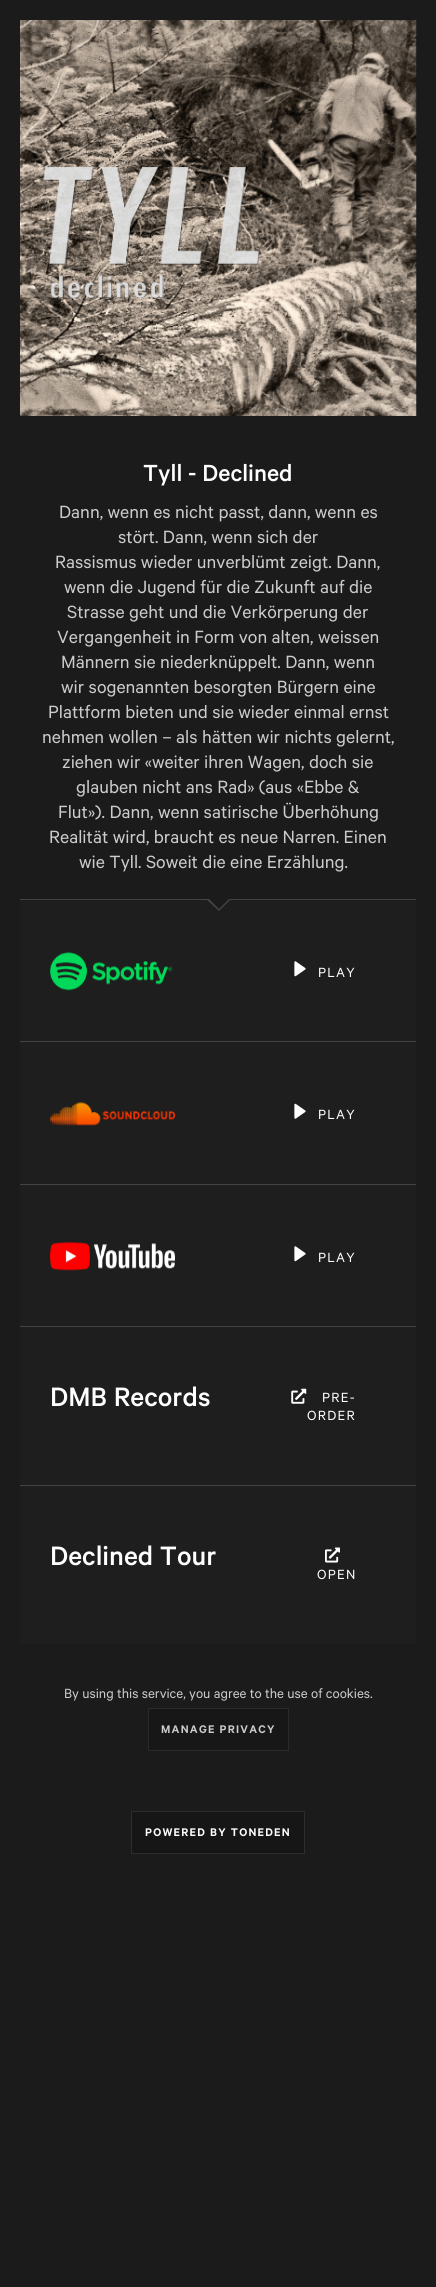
#include <cairo/cairo.h>
#include <math.h>
#include <stddef.h>


static void draw_spaced(cairo_t *cr, double x, double y, const char *s, double letter, double word) {
  cairo_move_to(cr, x, y);
  while (*s) {
    char ch[5] = {0};
    int n = 0;
    do ch[n++] = *s++; while ((*s & 0xC0) == 0x80);
    cairo_show_text(cr, ch);
    cairo_rel_move_to(cr, letter + word * (*ch == ' '), 0);
  }
}

static void draw_image(cairo_t *cr, const char *path, double x, double y, double w, double h) {
  cairo_surface_t *image = cairo_image_surface_create_from_png(path);
  cairo_save(cr);
  cairo_set_source_surface(cr, image, x, y);
  cairo_rectangle(cr, x, y, w, h);
  cairo_fill(cr);
  cairo_restore(cr);
  cairo_surface_destroy(image);
}

static void draw(cairo_t *cr) {
  cairo_set_source_rgb(cr, 27 / 255.0, 27 / 255.0, 27 / 255.0);
  cairo_paint(cr);
  draw_image(cr, "images/1.png", 20, 20, 397, 397);
  cairo_set_source_rgb(cr, 27 / 255.0, 27 / 255.0, 27 / 255.0);
  cairo_rectangle(cr, 20, 416, 396, 1);
  cairo_fill(cr);
  cairo_set_source_rgb(cr, 30 / 255.0, 30 / 255.0, 30 / 255.0);
  cairo_rectangle(cr, 20, 900, 396, 744);
  cairo_fill(cr);
  cairo_set_source_rgb(cr, 67 / 255.0, 67 / 255.0, 67 / 255.0);
  cairo_rectangle(cr, 20, 899, 396, 1);
  cairo_fill(cr);
  cairo_new_path(cr);
  cairo_move_to(cr, 206, 899);
  cairo_line_to(cr, 231, 899);
  cairo_line_to(cr, 219, 911);
  cairo_close_path(cr);
  cairo_fill(cr);
  cairo_set_source_rgb(cr, 27 / 255.0, 27 / 255.0, 27 / 255.0);
  cairo_new_path(cr);
  cairo_move_to(cr, 209, 899);
  cairo_line_to(cr, 229, 899);
  cairo_line_to(cr, 219, 909);
  cairo_close_path(cr);
  cairo_fill(cr);
  cairo_set_source_rgb(cr, 67 / 255.0, 67 / 255.0, 67 / 255.0);
  cairo_rectangle(cr, 20, 1041, 396, 1);
  cairo_fill(cr);
  draw_image(cr, "images/2.png", 50, 952, 123, 39);
  draw_image(cr, "images/3.png", 294, 961, 12, 16);
  cairo_rectangle(cr, 20, 1184, 396, 1);
  cairo_fill(cr);
  draw_image(cr, "images/4.png", 50, 1102, 125, 24);
  draw_image(cr, "images/5.png", 294, 1103, 12, 16);
  cairo_rectangle(cr, 20, 1326, 396, 1);
  cairo_fill(cr);
  draw_image(cr, "images/6.png", 50, 1242, 125, 29);
  draw_image(cr, "images/3.png", 294, 1246, 12, 16);
  cairo_rectangle(cr, 20, 1485, 396, 1);
  cairo_fill(cr);
  draw_image(cr, "images/7.png", 291, 1388, 16, 16);
  draw_image(cr, "images/8.png", 325, 1547, 15, 16);
  cairo_set_source_rgb(cr, 23 / 255.0, 23 / 255.0, 23 / 255.0);
  cairo_rectangle(cr, 148.5, 1708.5, 140, 42);
  cairo_fill_preserve(cr);
  cairo_set_source_rgb(cr, 42 / 255.0, 42 / 255.0, 42 / 255.0);
  cairo_set_line_width(cr, 1);
  cairo_stroke(cr);
  cairo_set_source_rgb(cr, 22 / 255.0, 22 / 255.0, 22 / 255.0);
  cairo_rectangle(cr, 131.5, 1811.5, 173, 42);
  cairo_fill_preserve(cr);
  cairo_set_source_rgb(cr, 45 / 255.0, 45 / 255.0, 45 / 255.0);
  cairo_stroke(cr);
  cairo_select_font_face(cr, "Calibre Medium", CAIRO_FONT_SLANT_NORMAL, CAIRO_FONT_WEIGHT_NORMAL);
  cairo_set_font_size(cr, 26.25);
  cairo_set_source_rgb(cr, 1, 1, 1);
  cairo_move_to(cr, 143, 481);
  cairo_show_text(cr, "Tyll - Declined");
  cairo_select_font_face(cr, "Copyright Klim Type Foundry", CAIRO_FONT_SLANT_NORMAL, CAIRO_FONT_WEIGHT_NORMAL);
  cairo_set_font_size(cr, 20);
  cairo_set_source_rgb(cr, 204 / 255.0, 204 / 255.0, 204 / 255.0);
  cairo_move_to(cr, 59, 518);
  cairo_show_text(cr, "Dann, wenn es nicht passt, dann, wenn es");
  cairo_move_to(cr, 118, 543);
  cairo_show_text(cr, "stört. Dann, wenn sich der");
  cairo_move_to(cr, 55, 568);
  cairo_show_text(cr, "Rassismus wieder unverblümt zeigt. Dann,");
  cairo_move_to(cr, 64, 593);
  cairo_show_text(cr, "wenn die Jugend für die Zukunft auf die");
  cairo_move_to(cr, 67, 618);
  cairo_show_text(cr, "Strasse geht und die Verkörperung der");
  cairo_move_to(cr, 57, 643);
  cairo_show_text(cr, "Vergangenheit in Form von alten, weissen");
  cairo_move_to(cr, 61, 668);
  cairo_show_text(cr, "Männern sie niederknüppelt. Dann, wenn");
  cairo_move_to(cr, 61, 693);
  cairo_show_text(cr, "wir sogenannten besorgten Bürgern eine");
  cairo_move_to(cr, 48, 718);
  cairo_show_text(cr, "Plattform bieten und sie wieder einmal ernst");
  cairo_move_to(cr, 42, 743);
  cairo_show_text(cr, "nehmen wollen – als hätten wir nichts gelernt,");
  cairo_move_to(cr, 62, 768);
  cairo_show_text(cr, "ziehen wir «weiter ihren Wagen, doch sie");
  cairo_move_to(cr, 76, 793);
  cairo_show_text(cr, "glauben nicht ans Rad» (aus «Ebbe &");
  cairo_move_to(cr, 58, 818);
  cairo_show_text(cr, "Flut»). Dann, wenn satirische Überhöhung");
  cairo_move_to(cr, 49, 843);
  cairo_show_text(cr, "Realität wird, braucht es neue Narren. Einen");
  cairo_move_to(cr, 79, 868);
  cairo_show_text(cr, "wie Tyll. Soweit die eine Erzählung.");
  cairo_set_font_size(cr, 15);
  cairo_set_source_rgb(cr, 1, 1, 1);
  draw_spaced(cr, 318, 977, "PLAY", 1.25, 0);
  draw_spaced(cr, 318, 1119, "PLAY", 1.25, 0);
  draw_spaced(cr, 318, 1262, "PLAY", 1.25, 0);
  cairo_select_font_face(cr, "Calibre Medium", CAIRO_FONT_SLANT_NORMAL, CAIRO_FONT_WEIGHT_NORMAL);
  cairo_set_font_size(cr, 30);
  cairo_move_to(cr, 50, 1406);
  cairo_show_text(cr, "DMB Records");
  cairo_select_font_face(cr, "Copyright Klim Type Foundry", CAIRO_FONT_SLANT_NORMAL, CAIRO_FONT_WEIGHT_NORMAL);
  cairo_set_font_size(cr, 15);
  draw_spaced(cr, 322, 1402, "PRE-", 1.25, 0);
  draw_spaced(cr, 307, 1420, "ORDER", 1.25, 0);
  cairo_select_font_face(cr, "Calibre Medium", CAIRO_FONT_SLANT_NORMAL, CAIRO_FONT_WEIGHT_NORMAL);
  cairo_set_font_size(cr, 30);
  cairo_move_to(cr, 50, 1565);
  cairo_show_text(cr, "Declined Tour");
  cairo_select_font_face(cr, "Copyright Klim Type Foundry", CAIRO_FONT_SLANT_NORMAL, CAIRO_FONT_WEIGHT_NORMAL);
  cairo_set_font_size(cr, 15);
  draw_spaced(cr, 317, 1579, "OPEN", 1.25, 0);
  cairo_set_source_rgb(cr, 204 / 255.0, 204 / 255.0, 204 / 255.0);
  cairo_move_to(cr, 64, 1698);
  cairo_show_text(cr, "By using this service, you agree to the use of cookies.");
  cairo_select_font_face(cr, "Calibre SemiBold", CAIRO_FONT_SLANT_NORMAL, CAIRO_FONT_WEIGHT_NORMAL);
  cairo_set_font_size(cr, 12.5);
  draw_spaced(cr, 161, 1733, "MANAGE PRIVACY", 1.25, 0);
  cairo_set_source_rgb(cr, 1, 1, 1);
  draw_spaced(cr, 145, 1836, "POWERED BY TONEDEN", 1.25, 0);
}

int main(void) {
  cairo_surface_t *surface = cairo_image_surface_create(CAIRO_FORMAT_RGB24, 436, 2287);
  cairo_t *cr = cairo_create(surface);
  cairo_font_options_t *options = cairo_font_options_create();
  cairo_font_options_set_hint_metrics(options, CAIRO_HINT_METRICS_OFF);
  cairo_font_options_set_hint_style(options, CAIRO_HINT_STYLE_NONE);
  cairo_set_font_options(cr, options);
  cairo_set_miter_limit(cr, 4);
  draw(cr);
  cairo_surface_write_to_png(surface, "out.png");
  cairo_font_options_destroy(options);
  cairo_destroy(cr);
  cairo_surface_destroy(surface);
  return 0;
}
